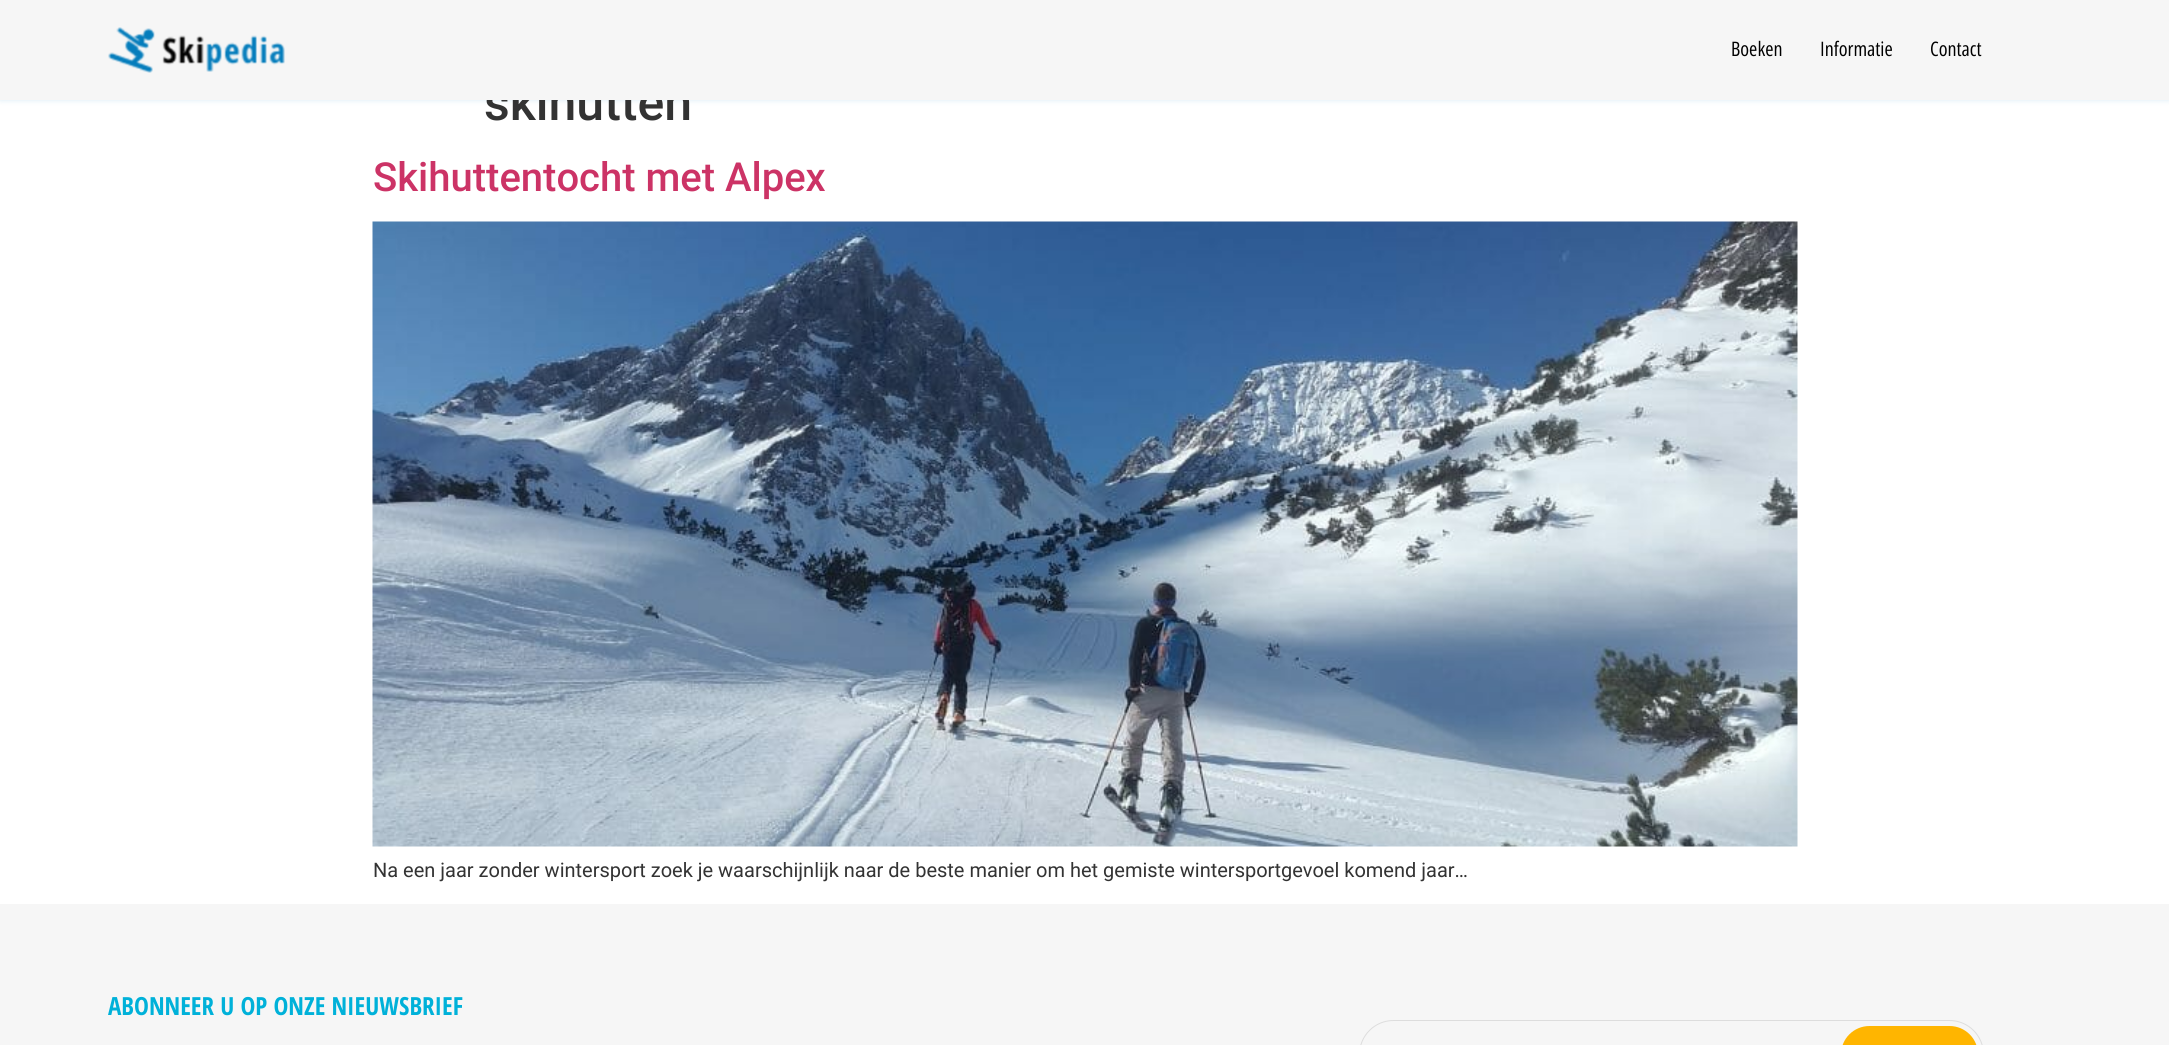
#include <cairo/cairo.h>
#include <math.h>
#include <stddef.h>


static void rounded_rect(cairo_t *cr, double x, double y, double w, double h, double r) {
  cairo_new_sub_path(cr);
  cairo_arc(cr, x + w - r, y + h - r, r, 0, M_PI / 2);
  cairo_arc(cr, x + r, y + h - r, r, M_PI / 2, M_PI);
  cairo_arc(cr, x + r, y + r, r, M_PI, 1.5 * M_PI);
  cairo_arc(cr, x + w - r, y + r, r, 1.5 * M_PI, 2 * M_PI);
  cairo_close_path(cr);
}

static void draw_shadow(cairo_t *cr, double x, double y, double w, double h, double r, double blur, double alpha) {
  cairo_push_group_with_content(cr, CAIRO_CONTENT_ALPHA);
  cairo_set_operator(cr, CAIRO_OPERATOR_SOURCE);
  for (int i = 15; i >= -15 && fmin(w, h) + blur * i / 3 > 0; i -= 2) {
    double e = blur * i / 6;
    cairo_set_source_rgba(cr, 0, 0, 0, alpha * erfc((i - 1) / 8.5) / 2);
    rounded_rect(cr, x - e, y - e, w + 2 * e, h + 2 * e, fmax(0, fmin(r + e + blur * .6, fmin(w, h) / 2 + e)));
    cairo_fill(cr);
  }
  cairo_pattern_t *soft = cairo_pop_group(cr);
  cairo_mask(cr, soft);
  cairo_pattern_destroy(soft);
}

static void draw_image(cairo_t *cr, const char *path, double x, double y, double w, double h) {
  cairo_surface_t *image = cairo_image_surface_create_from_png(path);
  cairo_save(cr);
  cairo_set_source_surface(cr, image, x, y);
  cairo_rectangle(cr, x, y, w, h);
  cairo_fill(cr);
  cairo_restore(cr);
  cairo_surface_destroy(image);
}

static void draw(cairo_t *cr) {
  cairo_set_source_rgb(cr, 1, 1, 1);
  cairo_paint(cr);
  cairo_set_source_rgb(cr, 5 / 255.0, 125 / 255.0, 188 / 255.0);
  draw_shadow(cr, 0, 0, 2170, 100, 0, 3, 0.15);
  draw_image(cr, "images/2.png", 372, 221, 1426, 626);
  cairo_set_source_rgb(cr, 246 / 255.0, 246 / 255.0, 246 / 255.0);
  cairo_rectangle(cr, 0, 904, 2169, 141);
  cairo_fill(cr);
  rounded_rect(cr, 1359.5, 1020.5, 624, 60, 34);
  cairo_set_source_rgb(cr, 221 / 255.0, 221 / 255.0, 221 / 255.0);
  cairo_set_line_width(cr, 1);
  cairo_stroke(cr);
  cairo_set_source_rgb(cr, 1, 181 / 255.0, 0);
  rounded_rect(cr, 1841, 1026, 137, 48, 28.5);
  cairo_fill(cr);
  cairo_select_font_face(cr, "Roboto Medium", CAIRO_FONT_SLANT_NORMAL, CAIRO_FONT_WEIGHT_NORMAL);
  cairo_set_font_size(cr, 50);
  cairo_set_source_rgb(cr, 51 / 255.0, 51 / 255.0, 51 / 255.0);
  cairo_move_to(cr, 484, 120);
  cairo_show_text(cr, "skihutten");
  cairo_set_source_rgb(cr, 246 / 255.0, 246 / 255.0, 246 / 255.0);
  cairo_rectangle(cr, 0, 0, 2169, 100);
  cairo_fill(cr);
  cairo_select_font_face(cr, "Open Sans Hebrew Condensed", CAIRO_FONT_SLANT_NORMAL, CAIRO_FONT_WEIGHT_NORMAL);
  cairo_set_font_size(cr, 20);
  cairo_set_source_rgb(cr, 0, 0, 0);
  cairo_move_to(cr, 1930, 56);
  cairo_show_text(cr, "Contact");
  cairo_move_to(cr, 1820, 56);
  cairo_show_text(cr, "Informatie");
  cairo_move_to(cr, 1731, 56);
  cairo_show_text(cr, "Boeken");
  draw_image(cr, "images/1.png", 108, 27, 177, 46);
  cairo_select_font_face(cr, "Roboto Medium", CAIRO_FONT_SLANT_NORMAL, CAIRO_FONT_WEIGHT_NORMAL);
  cairo_set_font_size(cr, 40);
  cairo_set_source_rgb(cr, 204 / 255.0, 51 / 255.0, 102 / 255.0);
  cairo_move_to(cr, 373, 191);
  cairo_show_text(cr, "Skihuttentocht met Alpex");
  cairo_select_font_face(cr, "Roboto", CAIRO_FONT_SLANT_NORMAL, CAIRO_FONT_WEIGHT_NORMAL);
  cairo_set_font_size(cr, 20);
  cairo_set_source_rgb(cr, 51 / 255.0, 51 / 255.0, 51 / 255.0);
  cairo_move_to(cr, 373, 877);
  cairo_show_text(cr, "Na een jaar zonder wintersport zoek je waarschijnlijk naar de beste manier om het gemiste wintersportgevoel komend jaar…");
  cairo_select_font_face(cr, "Open Sans Hebrew Condensed", CAIRO_FONT_SLANT_NORMAL, CAIRO_FONT_WEIGHT_BOLD);
  cairo_set_font_size(cr, 25);
  cairo_set_source_rgb(cr, 0, 177 / 255.0, 217 / 255.0);
  cairo_move_to(cr, 108, 1015);
  cairo_show_text(cr, "ABONNEER U OP ONZE NIEUWSBRIEF");
}

int main(void) {
  cairo_surface_t *surface = cairo_image_surface_create(CAIRO_FORMAT_RGB24, 2169, 1045);
  cairo_t *cr = cairo_create(surface);
  cairo_font_options_t *options = cairo_font_options_create();
  cairo_font_options_set_hint_metrics(options, CAIRO_HINT_METRICS_OFF);
  cairo_font_options_set_hint_style(options, CAIRO_HINT_STYLE_NONE);
  cairo_set_font_options(cr, options);
  cairo_set_miter_limit(cr, 4);
  draw(cr);
  cairo_surface_write_to_png(surface, "out.png");
  cairo_font_options_destroy(options);
  cairo_destroy(cr);
  cairo_surface_destroy(surface);
  return 0;
}
